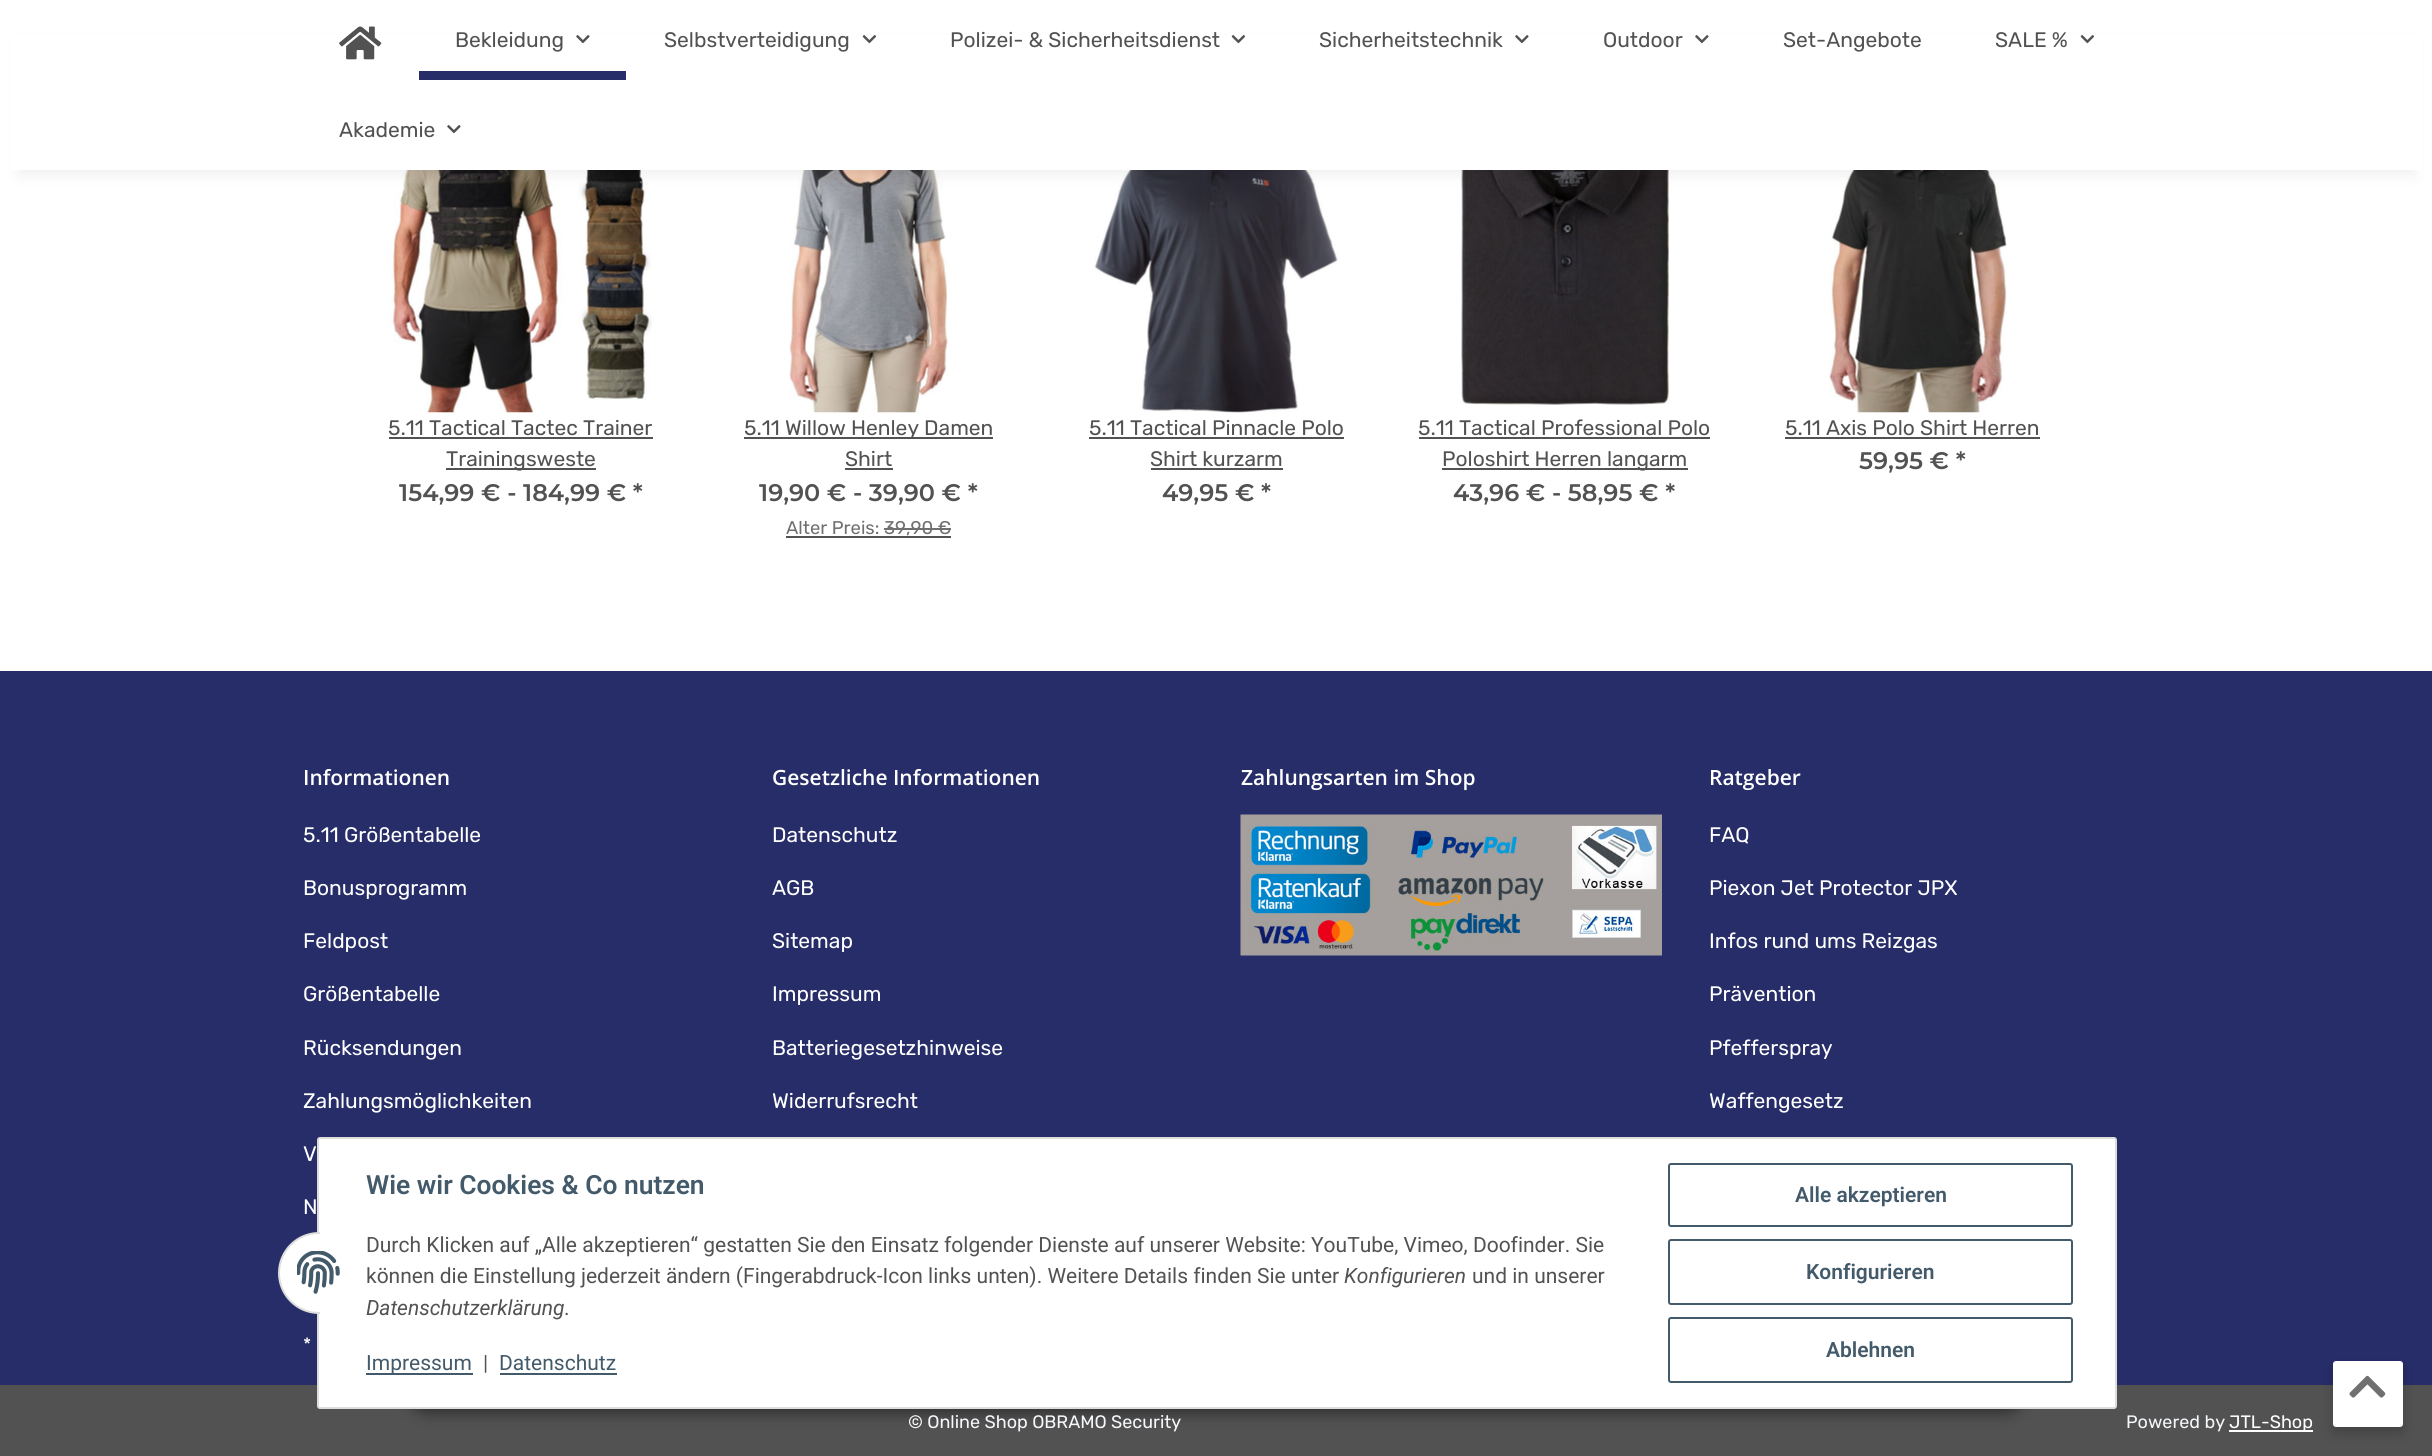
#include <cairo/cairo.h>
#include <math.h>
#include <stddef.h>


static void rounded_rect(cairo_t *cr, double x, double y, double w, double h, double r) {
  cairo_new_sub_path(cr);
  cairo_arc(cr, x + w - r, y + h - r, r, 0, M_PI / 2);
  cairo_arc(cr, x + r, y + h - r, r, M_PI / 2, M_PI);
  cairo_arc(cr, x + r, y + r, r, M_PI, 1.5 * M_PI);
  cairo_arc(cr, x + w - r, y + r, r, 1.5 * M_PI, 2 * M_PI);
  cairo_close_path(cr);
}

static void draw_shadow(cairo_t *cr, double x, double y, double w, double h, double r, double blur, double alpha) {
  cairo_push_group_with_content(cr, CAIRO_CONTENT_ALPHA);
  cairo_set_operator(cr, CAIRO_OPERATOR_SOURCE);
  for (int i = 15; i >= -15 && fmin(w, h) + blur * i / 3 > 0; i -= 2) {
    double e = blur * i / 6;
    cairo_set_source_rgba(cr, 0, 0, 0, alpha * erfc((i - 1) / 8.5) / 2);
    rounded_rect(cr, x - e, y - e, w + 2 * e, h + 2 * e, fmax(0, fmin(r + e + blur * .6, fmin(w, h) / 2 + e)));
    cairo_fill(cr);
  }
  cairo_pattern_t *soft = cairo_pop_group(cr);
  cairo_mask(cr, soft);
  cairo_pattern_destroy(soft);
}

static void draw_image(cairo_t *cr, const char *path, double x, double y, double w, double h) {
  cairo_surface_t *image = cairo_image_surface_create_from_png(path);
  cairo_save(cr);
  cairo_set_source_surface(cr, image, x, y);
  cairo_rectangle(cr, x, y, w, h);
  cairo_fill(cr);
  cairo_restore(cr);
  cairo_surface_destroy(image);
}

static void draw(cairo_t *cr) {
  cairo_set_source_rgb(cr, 1, 1, 1);
  cairo_paint(cr);
  draw_image(cr, "images/4.png", 388, 170, 264, 243);
  draw_image(cr, "images/5.png", 789, 170, 159, 243);
  draw_image(cr, "images/6.png", 1094, 170, 244, 243);
  draw_image(cr, "images/7.png", 1461, 170, 209, 235);
  draw_image(cr, "images/8.png", 1828, 170, 179, 243);
  cairo_set_source_rgb(cr, 0, 0, 0);
  draw_shadow(cr, 18, 42, 2397, 134, 0, 7, 0.06);
  cairo_set_source_rgb(cr, 1, 1, 1);
  cairo_rectangle(cr, 11, 35, 2411, 135);
  cairo_fill(cr);
  draw_image(cr, "images/1.png", 339, 26, 43, 34);
  draw_image(cr, "images/2.png", 576, 35, 14, 9);
  cairo_set_source_rgb(cr, 38 / 255.0, 45 / 255.0, 104 / 255.0);
  cairo_rectangle(cr, 419, 71, 207, 9);
  cairo_fill(cr);
  draw_image(cr, "images/3.png", 862, 35, 15, 9);
  draw_image(cr, "images/3.png", 1231, 35, 15, 9);
  draw_image(cr, "images/2.png", 1515, 35, 14, 9);
  draw_image(cr, "images/2.png", 1695, 35, 14, 9);
  draw_image(cr, "images/3.png", 2080, 35, 15, 9);
  draw_image(cr, "images/2.png", 447, 125, 14, 9);
  cairo_set_source_rgb(cr, 82 / 255.0, 82 / 255.0, 82 / 255.0);
  cairo_rectangle(cr, 389, 437, 264, 2);
  cairo_fill(cr);
  cairo_rectangle(cr, 446, 468, 150, 2);
  cairo_fill(cr);
  cairo_rectangle(cr, 744, 437, 249, 2);
  cairo_fill(cr);
  cairo_rectangle(cr, 845, 468, 48, 2);
  cairo_fill(cr);
  cairo_rectangle(cr, 786, 536, 165, 2);
  cairo_fill(cr);
  cairo_set_source_rgb(cr, 112 / 255.0, 112 / 255.0, 112 / 255.0);
  cairo_rectangle(cr, 884, 528, 67, 2);
  cairo_fill(cr);
  cairo_set_source_rgb(cr, 82 / 255.0, 82 / 255.0, 82 / 255.0);
  cairo_rectangle(cr, 1089, 437, 255, 2);
  cairo_fill(cr);
  cairo_rectangle(cr, 1151, 468, 132, 2);
  cairo_fill(cr);
  cairo_rectangle(cr, 1419, 437, 291, 2);
  cairo_fill(cr);
  cairo_rectangle(cr, 1442, 468, 246, 2);
  cairo_fill(cr);
  cairo_rectangle(cr, 1785, 437, 255, 2);
  cairo_fill(cr);
  cairo_set_source_rgb(cr, 38 / 255.0, 45 / 255.0, 104 / 255.0);
  cairo_rectangle(cr, 0, 671, 2432, 714);
  cairo_fill(cr);
  draw_image(cr, "images/9.png", 1240, 814, 422, 142);
  cairo_set_source_rgb(cr, 82 / 255.0, 82 / 255.0, 82 / 255.0);
  cairo_rectangle(cr, 0, 1385, 2432, 71);
  cairo_fill(cr);
  cairo_set_source_rgb(cr, 1, 1, 1);
  cairo_rectangle(cr, 2229, 1430, 84, 2);
  cairo_fill(cr);
  cairo_set_source_rgb(cr, 0, 0, 0);
  draw_shadow(cr, 2333, 1367, 70, 66, 3, 6, 0.2);
  cairo_set_source_rgb(cr, 1, 1, 1);
  rounded_rect(cr, 2333, 1361, 70, 66, 3);
  cairo_fill(cr);
  draw_image(cr, "images/10.png", 2349, 1375, 37, 23);
  cairo_set_source_rgb(cr, 0, 0, 0);
  draw_shadow(cr, 408, 1365, 1617, 48, 24, 7.5, 0.45);
  cairo_set_source_rgb(cr, 1, 1, 1);
  rounded_rect(cr, 318, 1138, 1798, 270, 2);
  cairo_fill_preserve(cr);
  cairo_set_source_rgb(cr, 221 / 255.0, 221 / 255.0, 221 / 255.0);
  cairo_stroke(cr);
  cairo_set_source_rgb(cr, 1, 1, 1);
  cairo_arc(cr, 319, 1273, 40, 0, 2 * M_PI);
  cairo_fill_preserve(cr);
  cairo_set_source_rgb(cr, 221 / 255.0, 221 / 255.0, 221 / 255.0);
  cairo_stroke(cr);
  cairo_set_source_rgb(cr, 1, 1, 1);
  cairo_rectangle(cr, 320, 1232, 40, 82);
  cairo_fill(cr);
  draw_image(cr, "images/11.png", 297, 1251, 43, 43);
  cairo_set_source_rgb(cr, 67 / 255.0, 90 / 255.0, 107 / 255.0);
  cairo_rectangle(cr, 366, 1373, 107, 2);
  cairo_fill(cr);
  cairo_rectangle(cr, 500, 1373, 117, 2);
  cairo_fill(cr);
  rounded_rect(cr, 1669, 1164, 403, 62, 2);
  cairo_stroke(cr);
  rounded_rect(cr, 1669, 1240, 403, 64, 2);
  cairo_stroke(cr);
  rounded_rect(cr, 1669, 1318, 403, 64, 2);
  cairo_stroke(cr);
  cairo_select_font_face(cr, "Rubik", CAIRO_FONT_SLANT_NORMAL, CAIRO_FONT_WEIGHT_NORMAL);
  cairo_set_font_size(cr, 21);
  cairo_set_source_rgb(cr, 82 / 255.0, 82 / 255.0, 82 / 255.0);
  cairo_move_to(cr, 455, 47);
  cairo_show_text(cr, "Bekleidung");
  cairo_move_to(cr, 664, 47);
  cairo_show_text(cr, "Selbstverteidigung");
  cairo_move_to(cr, 950, 47);
  cairo_show_text(cr, "Polizei- & Sicherheitsdienst");
  cairo_move_to(cr, 1319, 47);
  cairo_show_text(cr, "Sicherheitstechnik");
  cairo_move_to(cr, 1603, 47);
  cairo_show_text(cr, "Outdoor");
  cairo_move_to(cr, 1783, 47);
  cairo_show_text(cr, "Set-Angebote");
  cairo_move_to(cr, 1995, 47);
  cairo_show_text(cr, "SALE %");
  cairo_move_to(cr, 339, 137);
  cairo_show_text(cr, "Akademie");
  cairo_move_to(cr, 388, 435);
  cairo_show_text(cr, "5.11 Tactical Tactec Trainer");
  cairo_move_to(cr, 446, 466);
  cairo_show_text(cr, "Trainingsweste");
  cairo_select_font_face(cr, "Montserrat SemiBold", CAIRO_FONT_SLANT_NORMAL, CAIRO_FONT_WEIGHT_NORMAL);
  cairo_set_font_size(cr, 24);
  cairo_move_to(cr, 399, 501);
  cairo_show_text(cr, "154,99 € - 184,99 € *");
  cairo_select_font_face(cr, "Rubik", CAIRO_FONT_SLANT_NORMAL, CAIRO_FONT_WEIGHT_NORMAL);
  cairo_set_font_size(cr, 21);
  cairo_move_to(cr, 744, 435);
  cairo_show_text(cr, "5.11 Willow Henley Damen");
  cairo_move_to(cr, 845, 466);
  cairo_show_text(cr, "Shirt");
  cairo_select_font_face(cr, "Montserrat SemiBold", CAIRO_FONT_SLANT_NORMAL, CAIRO_FONT_WEIGHT_NORMAL);
  cairo_set_font_size(cr, 24);
  cairo_move_to(cr, 759, 501);
  cairo_show_text(cr, "19,90 € - 39,90 € *");
  cairo_select_font_face(cr, "Rubik", CAIRO_FONT_SLANT_NORMAL, CAIRO_FONT_WEIGHT_NORMAL);
  cairo_set_font_size(cr, 18.4);
  cairo_set_source_rgb(cr, 112 / 255.0, 112 / 255.0, 112 / 255.0);
  cairo_move_to(cr, 786, 534);
  cairo_show_text(cr, "Alter Preis: 39,90 €");
  cairo_set_font_size(cr, 21);
  cairo_set_source_rgb(cr, 82 / 255.0, 82 / 255.0, 82 / 255.0);
  cairo_move_to(cr, 1089, 435);
  cairo_show_text(cr, "5.11 Tactical Pinnacle Polo");
  cairo_move_to(cr, 1150, 466);
  cairo_show_text(cr, "Shirt kurzarm");
  cairo_select_font_face(cr, "Montserrat SemiBold", CAIRO_FONT_SLANT_NORMAL, CAIRO_FONT_WEIGHT_NORMAL);
  cairo_set_font_size(cr, 24);
  cairo_move_to(cr, 1162, 501);
  cairo_show_text(cr, "49,95 € *");
  cairo_select_font_face(cr, "Rubik", CAIRO_FONT_SLANT_NORMAL, CAIRO_FONT_WEIGHT_NORMAL);
  cairo_set_font_size(cr, 21);
  cairo_move_to(cr, 1418, 435);
  cairo_show_text(cr, "5.11 Tactical Professional Polo");
  cairo_move_to(cr, 1442, 466);
  cairo_show_text(cr, "Poloshirt Herren langarm");
  cairo_select_font_face(cr, "Montserrat SemiBold", CAIRO_FONT_SLANT_NORMAL, CAIRO_FONT_WEIGHT_NORMAL);
  cairo_set_font_size(cr, 24);
  cairo_move_to(cr, 1453, 501);
  cairo_show_text(cr, "43,96 € - 58,95 € *");
  cairo_select_font_face(cr, "Rubik", CAIRO_FONT_SLANT_NORMAL, CAIRO_FONT_WEIGHT_NORMAL);
  cairo_set_font_size(cr, 21);
  cairo_move_to(cr, 1785, 435);
  cairo_show_text(cr, "5.11 Axis Polo Shirt Herren");
  cairo_select_font_face(cr, "Montserrat SemiBold", CAIRO_FONT_SLANT_NORMAL, CAIRO_FONT_WEIGHT_NORMAL);
  cairo_set_font_size(cr, 24);
  cairo_move_to(cr, 1859, 469);
  cairo_show_text(cr, "59,95 € *");
  cairo_select_font_face(cr, "Open Sans SemiBold", CAIRO_FONT_SLANT_NORMAL, CAIRO_FONT_WEIGHT_NORMAL);
  cairo_set_font_size(cr, 21);
  cairo_set_source_rgb(cr, 1, 1, 1);
  cairo_move_to(cr, 303, 785);
  cairo_show_text(cr, "Informationen");
  cairo_select_font_face(cr, "Rubik", CAIRO_FONT_SLANT_NORMAL, CAIRO_FONT_WEIGHT_NORMAL);
  cairo_move_to(cr, 303, 842);
  cairo_show_text(cr, "5.11 Größentabelle");
  cairo_move_to(cr, 303, 895);
  cairo_show_text(cr, "Bonusprogramm");
  cairo_move_to(cr, 303, 948);
  cairo_show_text(cr, "Feldpost");
  cairo_move_to(cr, 303, 1001);
  cairo_show_text(cr, "Größentabelle");
  cairo_move_to(cr, 303, 1055);
  cairo_show_text(cr, "Rücksendungen");
  cairo_move_to(cr, 303, 1108);
  cairo_show_text(cr, "Zahlungsmöglichkeiten");
  cairo_move_to(cr, 303, 1161);
  cairo_show_text(cr, "V");
  cairo_move_to(cr, 303, 1214);
  cairo_show_text(cr, "N");
  cairo_select_font_face(cr, "Open Sans SemiBold", CAIRO_FONT_SLANT_NORMAL, CAIRO_FONT_WEIGHT_NORMAL);
  cairo_move_to(cr, 772, 785);
  cairo_show_text(cr, "Gesetzliche Informationen");
  cairo_select_font_face(cr, "Rubik", CAIRO_FONT_SLANT_NORMAL, CAIRO_FONT_WEIGHT_NORMAL);
  cairo_move_to(cr, 772, 842);
  cairo_show_text(cr, "Datenschutz");
  cairo_move_to(cr, 772, 895);
  cairo_show_text(cr, "AGB");
  cairo_move_to(cr, 772, 948);
  cairo_show_text(cr, "Sitemap");
  cairo_move_to(cr, 772, 1001);
  cairo_show_text(cr, "Impressum");
  cairo_move_to(cr, 772, 1055);
  cairo_show_text(cr, "Batteriegesetzhinweise");
  cairo_move_to(cr, 772, 1108);
  cairo_show_text(cr, "Widerrufsrecht");
  cairo_select_font_face(cr, "Open Sans SemiBold", CAIRO_FONT_SLANT_NORMAL, CAIRO_FONT_WEIGHT_NORMAL);
  cairo_move_to(cr, 1241, 785);
  cairo_show_text(cr, "Zahlungsarten im Shop");
  cairo_move_to(cr, 1709, 785);
  cairo_show_text(cr, "Ratgeber");
  cairo_select_font_face(cr, "Rubik", CAIRO_FONT_SLANT_NORMAL, CAIRO_FONT_WEIGHT_NORMAL);
  cairo_move_to(cr, 1709, 842);
  cairo_show_text(cr, "FAQ");
  cairo_move_to(cr, 1709, 895);
  cairo_show_text(cr, "Piexon Jet Protector JPX");
  cairo_move_to(cr, 1709, 948);
  cairo_show_text(cr, "Infos rund ums Reizgas");
  cairo_move_to(cr, 1709, 1001);
  cairo_show_text(cr, "Prävention");
  cairo_move_to(cr, 1709, 1055);
  cairo_show_text(cr, "Pfefferspray");
  cairo_move_to(cr, 1709, 1108);
  cairo_show_text(cr, "Waffengesetz");
  cairo_set_font_size(cr, 18.4);
  cairo_move_to(cr, 303, 1351);
  cairo_show_text(cr, "*");
  cairo_set_font_size(cr, 18);
  cairo_set_source_rgb(cr, 245 / 255.0, 247 / 255.0, 250 / 255.0);
  cairo_move_to(cr, 908, 1428);
  cairo_show_text(cr, "© Online Shop OBRAMO Security");
  cairo_move_to(cr, 2126, 1428);
  cairo_show_text(cr, "Powered by");
  cairo_set_source_rgb(cr, 1, 1, 1);
  cairo_move_to(cr, 2229, 1428);
  cairo_show_text(cr, "JTL-Shop");
  cairo_select_font_face(cr, "Roboto SemiBold", CAIRO_FONT_SLANT_NORMAL, CAIRO_FONT_WEIGHT_NORMAL);
  cairo_set_font_size(cr, 26.4);
  cairo_set_source_rgb(cr, 67 / 255.0, 90 / 255.0, 107 / 255.0);
  cairo_move_to(cr, 366, 1194);
  cairo_show_text(cr, "Wie wir Cookies & Co nutzen");
  cairo_select_font_face(cr, "Roboto", CAIRO_FONT_SLANT_NORMAL, CAIRO_FONT_WEIGHT_NORMAL);
  cairo_set_font_size(cr, 21);
  cairo_set_source_rgb(cr, 82 / 255.0, 82 / 255.0, 82 / 255.0);
  cairo_move_to(cr, 366, 1252);
  cairo_show_text(cr, "Durch Klicken auf „Alle akzeptieren“ gestatten Sie den Einsatz folgender Dienste auf unserer Website: YouTube, Vimeo, Doofinder. Sie");
  cairo_move_to(cr, 366, 1283);
  cairo_show_text(cr, "können die Einstellung jederzeit ändern (Fingerabdruck-Icon links unten). Weitere Details finden Sie unter");
  cairo_select_font_face(cr, "Roboto", CAIRO_FONT_SLANT_ITALIC, CAIRO_FONT_WEIGHT_NORMAL);
  cairo_move_to(cr, 1344, 1283);
  cairo_show_text(cr, "Konfigurieren");
  cairo_select_font_face(cr, "Roboto", CAIRO_FONT_SLANT_NORMAL, CAIRO_FONT_WEIGHT_NORMAL);
  cairo_move_to(cr, 1472, 1283);
  cairo_show_text(cr, "und in unserer");
  cairo_select_font_face(cr, "Roboto", CAIRO_FONT_SLANT_ITALIC, CAIRO_FONT_WEIGHT_NORMAL);
  cairo_move_to(cr, 366, 1315);
  cairo_show_text(cr, "Datenschutzerklärung");
  cairo_select_font_face(cr, "Roboto", CAIRO_FONT_SLANT_NORMAL, CAIRO_FONT_WEIGHT_NORMAL);
  cairo_move_to(cr, 564, 1315);
  cairo_show_text(cr, ".");
  cairo_set_source_rgb(cr, 67 / 255.0, 90 / 255.0, 107 / 255.0);
  cairo_move_to(cr, 366, 1370);
  cairo_show_text(cr, "Impressum");
  cairo_set_source_rgb(cr, 82 / 255.0, 82 / 255.0, 82 / 255.0);
  cairo_move_to(cr, 483, 1370);
  cairo_show_text(cr, "|");
  cairo_set_source_rgb(cr, 67 / 255.0, 90 / 255.0, 107 / 255.0);
  cairo_move_to(cr, 499, 1370);
  cairo_show_text(cr, "Datenschutz");
  cairo_select_font_face(cr, "Roboto SemiBold", CAIRO_FONT_SLANT_NORMAL, CAIRO_FONT_WEIGHT_NORMAL);
  cairo_move_to(cr, 1795, 1202);
  cairo_show_text(cr, "Alle akzeptieren");
  cairo_move_to(cr, 1806, 1279);
  cairo_show_text(cr, "Konfigurieren");
  cairo_move_to(cr, 1826, 1357);
  cairo_show_text(cr, "Ablehnen");
}

int main(void) {
  cairo_surface_t *surface = cairo_image_surface_create(CAIRO_FORMAT_RGB24, 2432, 1456);
  cairo_t *cr = cairo_create(surface);
  cairo_font_options_t *options = cairo_font_options_create();
  cairo_font_options_set_hint_metrics(options, CAIRO_HINT_METRICS_OFF);
  cairo_font_options_set_hint_style(options, CAIRO_HINT_STYLE_NONE);
  cairo_set_font_options(cr, options);
  cairo_set_miter_limit(cr, 4);
  draw(cr);
  cairo_surface_write_to_png(surface, "out.png");
  cairo_font_options_destroy(options);
  cairo_destroy(cr);
  cairo_surface_destroy(surface);
  return 0;
}
